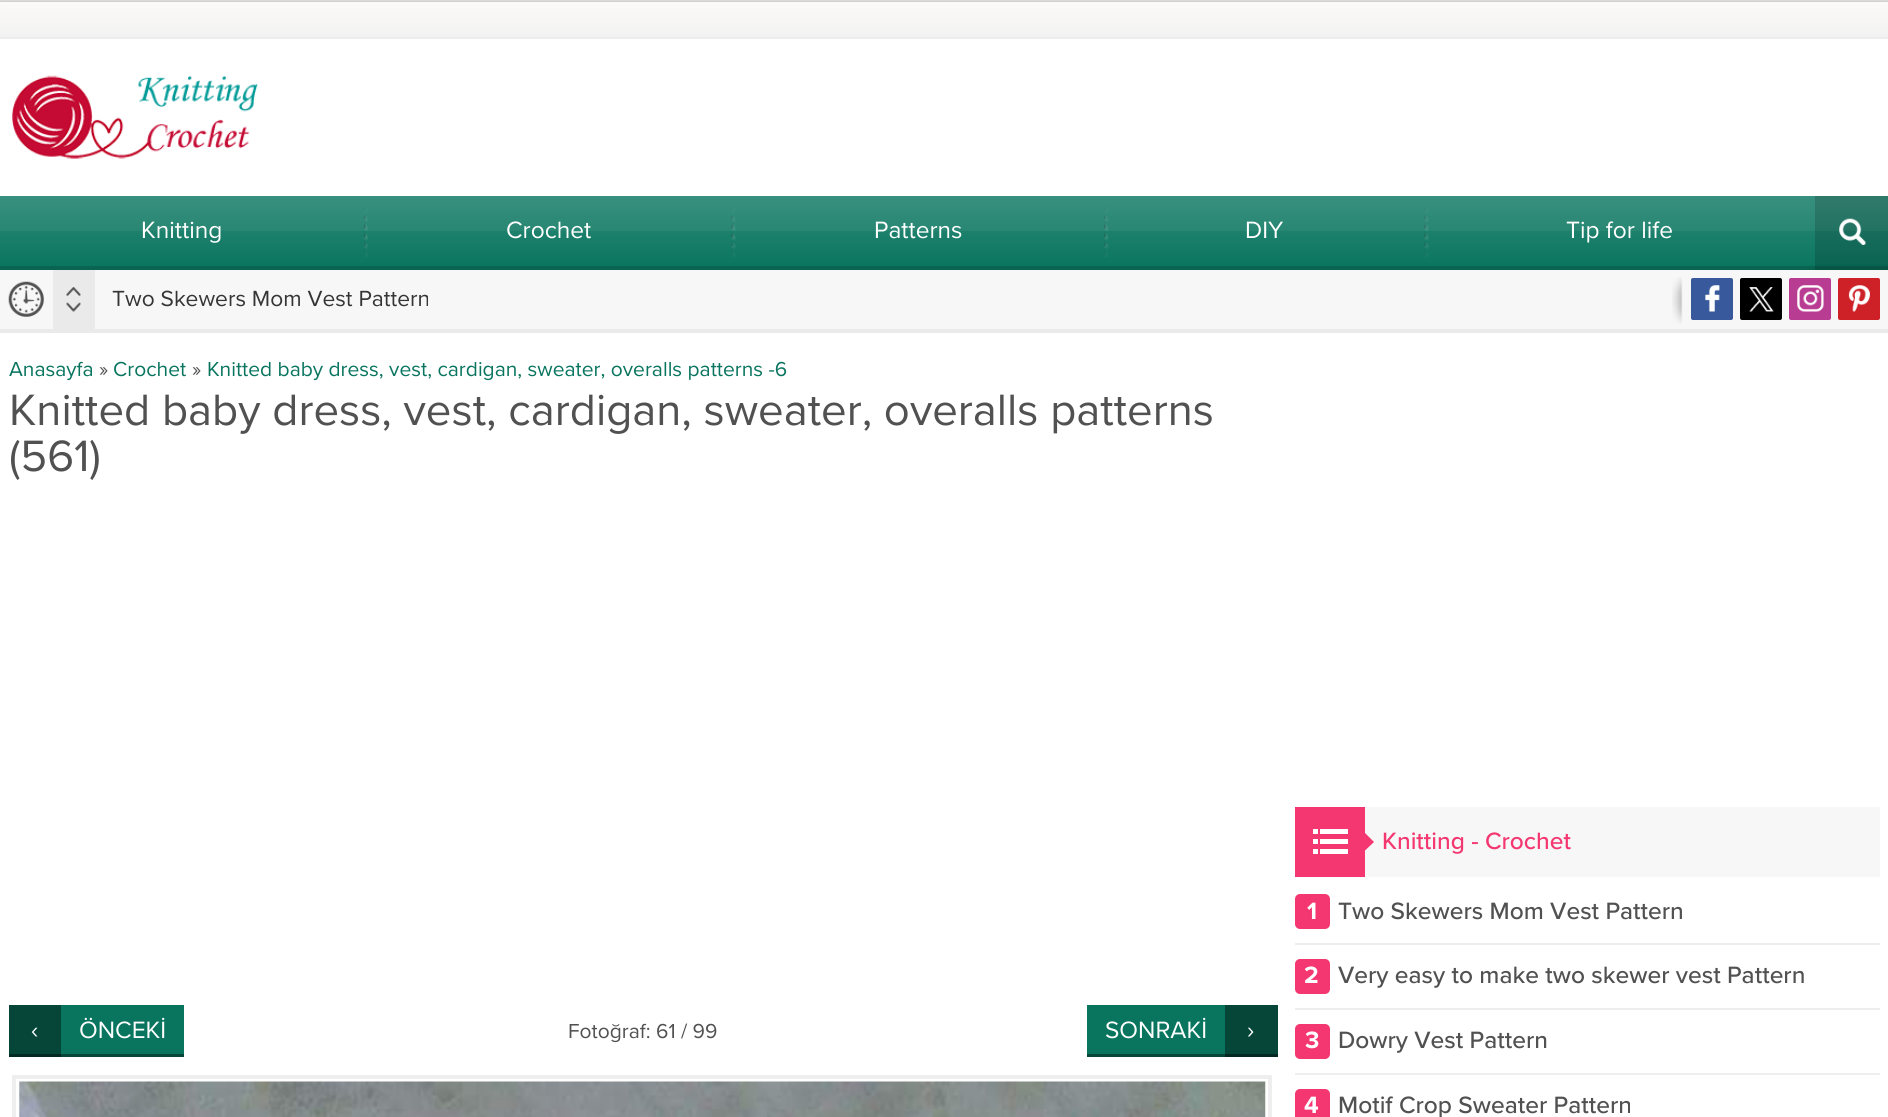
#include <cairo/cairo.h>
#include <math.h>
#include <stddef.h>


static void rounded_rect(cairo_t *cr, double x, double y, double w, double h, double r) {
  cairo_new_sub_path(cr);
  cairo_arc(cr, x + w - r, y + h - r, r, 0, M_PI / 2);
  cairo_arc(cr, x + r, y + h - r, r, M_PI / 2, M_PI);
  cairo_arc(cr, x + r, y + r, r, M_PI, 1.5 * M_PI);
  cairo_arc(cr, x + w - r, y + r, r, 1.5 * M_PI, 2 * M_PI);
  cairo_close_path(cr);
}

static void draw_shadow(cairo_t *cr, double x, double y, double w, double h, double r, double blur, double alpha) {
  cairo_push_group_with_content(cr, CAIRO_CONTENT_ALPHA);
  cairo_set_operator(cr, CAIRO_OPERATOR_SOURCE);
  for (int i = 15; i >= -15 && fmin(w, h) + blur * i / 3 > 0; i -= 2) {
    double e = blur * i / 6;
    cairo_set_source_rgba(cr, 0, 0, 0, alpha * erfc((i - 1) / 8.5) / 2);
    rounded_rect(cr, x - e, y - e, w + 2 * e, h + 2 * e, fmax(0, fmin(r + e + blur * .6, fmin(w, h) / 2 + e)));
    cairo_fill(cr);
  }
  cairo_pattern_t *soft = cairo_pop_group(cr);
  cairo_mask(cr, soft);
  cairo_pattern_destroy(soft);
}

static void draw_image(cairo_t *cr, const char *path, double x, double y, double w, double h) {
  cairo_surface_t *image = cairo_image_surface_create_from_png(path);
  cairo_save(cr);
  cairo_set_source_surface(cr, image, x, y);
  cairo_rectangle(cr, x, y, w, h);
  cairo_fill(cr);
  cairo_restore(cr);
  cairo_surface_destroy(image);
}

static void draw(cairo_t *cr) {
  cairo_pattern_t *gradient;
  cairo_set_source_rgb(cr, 238 / 255.0, 238 / 255.0, 238 / 255.0);
  cairo_paint(cr);
  cairo_set_source_rgb(cr, 0, 0, 0);
  draw_shadow(cr, 0, 2, 1888, 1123, 0, 2.5, 0.3);
  cairo_set_source_rgb(cr, 1, 1, 1);
  cairo_rectangle(cr, 0, 39, 1888, 1078);
  cairo_fill(cr);
  gradient = cairo_pattern_create_linear(944, 1.7, 944, 37);
  cairo_pattern_add_color_stop_rgba(gradient, 0, 251 / 255.0, 250 / 255.0, 248 / 255.0, 1);
  cairo_pattern_add_color_stop_rgba(gradient, 1, 242 / 255.0, 242 / 255.0, 242 / 255.0, 1);
  cairo_set_source(cr, gradient);
  cairo_pattern_destroy(gradient);
  cairo_rectangle(cr, 0, 2, 1888, 35);
  cairo_fill(cr);
  cairo_set_source_rgb(cr, 236 / 255.0, 236 / 255.0, 236 / 255.0);
  cairo_rectangle(cr, 0, 37, 1888, 2);
  cairo_fill(cr);
  draw_image(cr, "images/1.png", 12, 75, 246, 84);
  gradient = cairo_pattern_create_linear(944, 196, 944, 270);
  cairo_pattern_add_color_stop_rgba(gradient, 0, 46 / 255.0, 138 / 255.0, 119 / 255.0, 1);
  cairo_pattern_add_color_stop_rgba(gradient, 1, 9 / 255.0, 117 / 255.0, 95 / 255.0, 1);
  cairo_set_source(cr, gradient);
  cairo_pattern_destroy(gradient);
  cairo_rectangle(cr, 0, 231, 1815, 35);
  cairo_fill(cr);
  gradient = cairo_pattern_create_linear(944, 196, 944, 270);
  cairo_pattern_add_color_stop_rgba(gradient, 0, 39 / 255.0, 117 / 255.0, 101 / 255.0, 1);
  cairo_pattern_add_color_stop_rgba(gradient, 1, 8 / 255.0, 99 / 255.0, 81 / 255.0, 1);
  cairo_set_source(cr, gradient);
  cairo_pattern_destroy(gradient);
  cairo_rectangle(cr, 1815, 231, 73, 35);
  cairo_fill(cr);
  gradient = cairo_pattern_create_linear(944, 196, 944, 270);
  cairo_pattern_add_color_stop_rgba(gradient, 0, 56 / 255.0, 144 / 255.0, 126 / 255.0, 1);
  cairo_pattern_add_color_stop_rgba(gradient, 1, 21 / 255.0, 124 / 255.0, 103 / 255.0, 1);
  cairo_set_source(cr, gradient);
  cairo_pattern_destroy(gradient);
  cairo_rectangle(cr, 0, 196, 1815, 35);
  cairo_fill(cr);
  gradient = cairo_pattern_create_linear(944, 196, 944, 270);
  cairo_pattern_add_color_stop_rgba(gradient, 0, 48 / 255.0, 122 / 255.0, 107 / 255.0, 1);
  cairo_pattern_add_color_stop_rgba(gradient, 1, 18 / 255.0, 105 / 255.0, 88 / 255.0, 1);
  cairo_set_source(cr, gradient);
  cairo_pattern_destroy(gradient);
  cairo_rectangle(cr, 1815, 196, 73, 35);
  cairo_fill(cr);
  cairo_set_source_rgb(cr, 9 / 255.0, 100 / 255.0, 81 / 255.0);
  cairo_rectangle(cr, 0, 266, 1815, 4);
  cairo_fill(cr);
  draw_image(cr, "images/2.png", 364, 207, 4, 50);
  draw_image(cr, "images/3.png", 731, 208, 5, 49);
  draw_image(cr, "images/4.png", 1104, 207, 5, 50);
  draw_image(cr, "images/3.png", 1424, 208, 5, 49);
  cairo_set_source_rgb(cr, 7 / 255.0, 85 / 255.0, 69 / 255.0);
  cairo_rectangle(cr, 1815, 266, 73, 4);
  cairo_fill(cr);
  draw_image(cr, "images/5.png", 1839, 218, 27, 27);
  cairo_set_source_rgb(cr, 247 / 255.0, 247 / 255.0, 247 / 255.0);
  cairo_rectangle(cr, 0, 270, 1888, 59);
  cairo_fill(cr);
  cairo_set_source_rgb(cr, 234 / 255.0, 234 / 255.0, 234 / 255.0);
  cairo_rectangle(cr, 0, 329, 1888, 4);
  cairo_fill(cr);
  draw_image(cr, "images/6.png", 8, 281, 36, 36);
  cairo_rectangle(cr, 53, 270, 42, 59);
  cairo_fill(cr);
  draw_image(cr, "images/7.png", 66, 287, 15, 9);
  draw_image(cr, "images/8.png", 66, 302, 15, 10);
  draw_image(cr, "images/9.png", 1672, 277, 11, 47);
  cairo_set_source_rgb(cr, 56 / 255.0, 89 / 255.0, 155 / 255.0);
  rounded_rect(cr, 1691, 278, 42, 42, 2);
  cairo_fill(cr);
  draw_image(cr, "images/10.png", 1705, 285, 15, 27);
  cairo_set_source_rgb(cr, 0, 0, 0);
  rounded_rect(cr, 1740, 278, 42, 42, 2);
  cairo_fill(cr);
  draw_image(cr, "images/11.png", 1749, 287, 25, 25);
  cairo_set_source_rgb(cr, 184 / 255.0, 60 / 255.0, 146 / 255.0);
  rounded_rect(cr, 1789, 278, 42, 42, 2);
  cairo_fill(cr);
  draw_image(cr, "images/12.png", 1797, 285, 27, 27);
  cairo_set_source_rgb(cr, 205 / 255.0, 33 / 255.0, 39 / 255.0);
  rounded_rect(cr, 1838, 278, 42, 42, 2);
  cairo_fill(cr);
  draw_image(cr, "images/13.png", 1848, 285, 22, 27);
  cairo_set_source_rgb(cr, 9 / 255.0, 117 / 255.0, 95 / 255.0);
  cairo_rectangle(cr, 61, 1005, 123, 49);
  cairo_fill(cr);
  cairo_set_source_rgb(cr, 5 / 255.0, 70 / 255.0, 57 / 255.0);
  cairo_rectangle(cr, 9, 1005, 52, 49);
  cairo_fill(cr);
  cairo_rectangle(cr, 61, 1054, 123, 3);
  cairo_fill(cr);
  cairo_set_source_rgb(cr, 3 / 255.0, 42 / 255.0, 34 / 255.0);
  cairo_rectangle(cr, 9, 1054, 52, 3);
  cairo_fill(cr);
  cairo_set_source_rgb(cr, 9 / 255.0, 117 / 255.0, 95 / 255.0);
  cairo_rectangle(cr, 1087, 1005, 138, 49);
  cairo_fill(cr);
  cairo_set_source_rgb(cr, 5 / 255.0, 70 / 255.0, 57 / 255.0);
  cairo_rectangle(cr, 1225, 1005, 53, 49);
  cairo_fill(cr);
  cairo_rectangle(cr, 1087, 1054, 138, 3);
  cairo_fill(cr);
  cairo_set_source_rgb(cr, 3 / 255.0, 42 / 255.0, 34 / 255.0);
  cairo_rectangle(cr, 1225, 1054, 53, 3);
  cairo_fill(cr);
  cairo_rectangle(cr, 14, 1077, 1256, 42);
  cairo_set_source_rgb(cr, 238 / 255.0, 238 / 255.0, 238 / 255.0);
  cairo_set_line_width(cr, 4);
  cairo_stroke(cr);
  draw_image(cr, "images/14.png", 19, 1081, 1247, 36);
  cairo_set_source_rgb(cr, 247 / 255.0, 247 / 255.0, 247 / 255.0);
  cairo_rectangle(cr, 1365, 807, 515, 70);
  cairo_fill(cr);
  cairo_set_source_rgb(cr, 244 / 255.0, 55 / 255.0, 113 / 255.0);
  cairo_rectangle(cr, 1295, 807, 70, 70);
  cairo_fill(cr);
  cairo_set_source_rgb(cr, 1, 1, 1);
  cairo_rectangle(cr, 1320, 849, 28, 5);
  cairo_fill(cr);
  cairo_rectangle(cr, 1320, 839, 28, 5);
  cairo_fill(cr);
  cairo_rectangle(cr, 1320, 829, 28, 5);
  cairo_fill(cr);
  cairo_rectangle(cr, 1313, 849, 5, 5);
  cairo_fill(cr);
  cairo_rectangle(cr, 1313, 839, 5, 5);
  cairo_fill(cr);
  cairo_rectangle(cr, 1313, 829, 5, 5);
  cairo_fill(cr);
  cairo_set_source_rgb(cr, 244 / 255.0, 55 / 255.0, 113 / 255.0);
  cairo_new_path(cr);
  cairo_move_to(cr, 1365, 850.5);
  cairo_line_to(cr, 1365, 833);
  cairo_line_to(cr, 1374, 842);
  cairo_close_path(cr);
  cairo_fill(cr);
  cairo_set_source_rgb(cr, 238 / 255.0, 238 / 255.0, 238 / 255.0);
  cairo_rectangle(cr, 1295, 943, 585, 2);
  cairo_fill(cr);
  cairo_set_source_rgb(cr, 244 / 255.0, 55 / 255.0, 113 / 255.0);
  rounded_rect(cr, 1295, 894, 35, 35, 5);
  cairo_fill(cr);
  cairo_set_source_rgb(cr, 238 / 255.0, 238 / 255.0, 238 / 255.0);
  cairo_rectangle(cr, 1295, 1008, 585, 2);
  cairo_fill(cr);
  cairo_set_source_rgb(cr, 244 / 255.0, 55 / 255.0, 113 / 255.0);
  rounded_rect(cr, 1295, 959, 35, 35, 5);
  cairo_fill(cr);
  cairo_set_source_rgb(cr, 238 / 255.0, 238 / 255.0, 238 / 255.0);
  cairo_rectangle(cr, 1295, 1073, 585, 2);
  cairo_fill(cr);
  cairo_set_source_rgb(cr, 244 / 255.0, 55 / 255.0, 113 / 255.0);
  rounded_rect(cr, 1295, 1024, 35, 35, 5);
  cairo_fill(cr);
  rounded_rect(cr, 1295, 1089, 35, 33, 5);
  cairo_fill(cr);
  cairo_select_font_face(cr, "Proxima Nova", CAIRO_FONT_SLANT_NORMAL, CAIRO_FONT_WEIGHT_NORMAL);
  cairo_set_font_size(cr, 24.5);
  cairo_set_source_rgb(cr, 1, 1, 1);
  cairo_move_to(cr, 141, 238);
  cairo_show_text(cr, "Knitting");
  cairo_move_to(cr, 506, 238);
  cairo_show_text(cr, "Crochet");
  cairo_move_to(cr, 874, 238);
  cairo_show_text(cr, "Patterns");
  cairo_move_to(cr, 1245, 238);
  cairo_show_text(cr, "DIY");
  cairo_move_to(cr, 1566, 238);
  cairo_show_text(cr, "Tip for life");
  cairo_set_font_size(cr, 22.75);
  cairo_set_source_rgb(cr, 53 / 255.0, 53 / 255.0, 53 / 255.0);
  cairo_move_to(cr, 112, 306);
  cairo_show_text(cr, "Two Skewers Mom Vest Pattern");
  cairo_set_font_size(cr, 21);
  cairo_set_source_rgb(cr, 9 / 255.0, 117 / 255.0, 95 / 255.0);
  cairo_move_to(cr, 9, 376);
  cairo_show_text(cr, "Anasayfa");
  cairo_set_source_rgb(cr, 81 / 255.0, 81 / 255.0, 81 / 255.0);
  cairo_move_to(cr, 99, 376);
  cairo_show_text(cr, "»");
  cairo_set_source_rgb(cr, 9 / 255.0, 117 / 255.0, 95 / 255.0);
  cairo_move_to(cr, 113, 376);
  cairo_show_text(cr, "Crochet");
  cairo_set_source_rgb(cr, 81 / 255.0, 81 / 255.0, 81 / 255.0);
  cairo_move_to(cr, 192, 376);
  cairo_show_text(cr, "»");
  cairo_set_source_rgb(cr, 9 / 255.0, 117 / 255.0, 95 / 255.0);
  cairo_move_to(cr, 207, 376);
  cairo_show_text(cr, "Knitted baby dress, vest, cardigan, sweater, overalls patterns -6");
  cairo_set_font_size(cr, 45.5);
  cairo_set_source_rgb(cr, 81 / 255.0, 81 / 255.0, 81 / 255.0);
  cairo_move_to(cr, 9, 425);
  cairo_show_text(cr, "Knitted baby dress, vest, cardigan, sweater, overalls patterns");
  cairo_move_to(cr, 9, 471);
  cairo_show_text(cr, "(561)");
  cairo_set_font_size(cr, 24.5);
  cairo_set_source_rgb(cr, 1, 1, 1);
  cairo_move_to(cr, 31, 1038);
  cairo_show_text(cr, "‹");
  cairo_move_to(cr, 79, 1038);
  cairo_show_text(cr, "ÖNCEKİ");
  cairo_set_font_size(cr, 21);
  cairo_set_source_rgb(cr, 81 / 255.0, 81 / 255.0, 81 / 255.0);
  cairo_move_to(cr, 568, 1038);
  cairo_show_text(cr, "Fotoğraf: 61 / 99");
  cairo_set_font_size(cr, 24.5);
  cairo_set_source_rgb(cr, 1, 1, 1);
  cairo_move_to(cr, 1105, 1038);
  cairo_show_text(cr, "SONRAKİ");
  cairo_move_to(cr, 1247, 1038);
  cairo_show_text(cr, "›");
  cairo_select_font_face(cr, "Proxima Nova Medium", CAIRO_FONT_SLANT_NORMAL, CAIRO_FONT_WEIGHT_NORMAL);
  cairo_set_source_rgb(cr, 244 / 255.0, 55 / 255.0, 113 / 255.0);
  cairo_move_to(cr, 1382, 849);
  cairo_show_text(cr, "Knitting - Crochet");
  cairo_select_font_face(cr, "Proxima Nova", CAIRO_FONT_SLANT_NORMAL, CAIRO_FONT_WEIGHT_BOLD);
  cairo_set_source_rgb(cr, 1, 1, 1);
  cairo_move_to(cr, 1307, 919);
  cairo_show_text(cr, "1");
  cairo_select_font_face(cr, "Proxima Nova Medium", CAIRO_FONT_SLANT_NORMAL, CAIRO_FONT_WEIGHT_NORMAL);
  cairo_set_source_rgb(cr, 81 / 255.0, 81 / 255.0, 81 / 255.0);
  cairo_move_to(cr, 1338, 919);
  cairo_show_text(cr, "Two Skewers Mom Vest Pattern");
  cairo_select_font_face(cr, "Proxima Nova", CAIRO_FONT_SLANT_NORMAL, CAIRO_FONT_WEIGHT_BOLD);
  cairo_set_source_rgb(cr, 1, 1, 1);
  cairo_move_to(cr, 1304, 983);
  cairo_show_text(cr, "2");
  cairo_select_font_face(cr, "Proxima Nova Medium", CAIRO_FONT_SLANT_NORMAL, CAIRO_FONT_WEIGHT_NORMAL);
  cairo_set_source_rgb(cr, 81 / 255.0, 81 / 255.0, 81 / 255.0);
  cairo_move_to(cr, 1338, 983);
  cairo_show_text(cr, "Very easy to make two skewer vest Pattern");
  cairo_select_font_face(cr, "Proxima Nova", CAIRO_FONT_SLANT_NORMAL, CAIRO_FONT_WEIGHT_BOLD);
  cairo_set_source_rgb(cr, 1, 1, 1);
  cairo_move_to(cr, 1305, 1048);
  cairo_show_text(cr, "3");
  cairo_select_font_face(cr, "Proxima Nova Medium", CAIRO_FONT_SLANT_NORMAL, CAIRO_FONT_WEIGHT_NORMAL);
  cairo_set_source_rgb(cr, 81 / 255.0, 81 / 255.0, 81 / 255.0);
  cairo_move_to(cr, 1338, 1048);
  cairo_show_text(cr, "Dowry Vest Pattern");
  cairo_select_font_face(cr, "Proxima Nova", CAIRO_FONT_SLANT_NORMAL, CAIRO_FONT_WEIGHT_BOLD);
  cairo_set_source_rgb(cr, 1, 1, 1);
  cairo_move_to(cr, 1304, 1113);
  cairo_show_text(cr, "4");
  cairo_select_font_face(cr, "Proxima Nova Medium", CAIRO_FONT_SLANT_NORMAL, CAIRO_FONT_WEIGHT_NORMAL);
  cairo_set_source_rgb(cr, 81 / 255.0, 81 / 255.0, 81 / 255.0);
  cairo_move_to(cr, 1338, 1113);
  cairo_show_text(cr, "Motif Crop Sweater Pattern");
}

int main(void) {
  cairo_surface_t *surface = cairo_image_surface_create(CAIRO_FORMAT_RGB24, 1888, 1117);
  cairo_t *cr = cairo_create(surface);
  cairo_font_options_t *options = cairo_font_options_create();
  cairo_font_options_set_hint_metrics(options, CAIRO_HINT_METRICS_OFF);
  cairo_font_options_set_hint_style(options, CAIRO_HINT_STYLE_NONE);
  cairo_set_font_options(cr, options);
  cairo_set_miter_limit(cr, 4);
  draw(cr);
  cairo_surface_write_to_png(surface, "out.png");
  cairo_font_options_destroy(options);
  cairo_destroy(cr);
  cairo_surface_destroy(surface);
  return 0;
}
